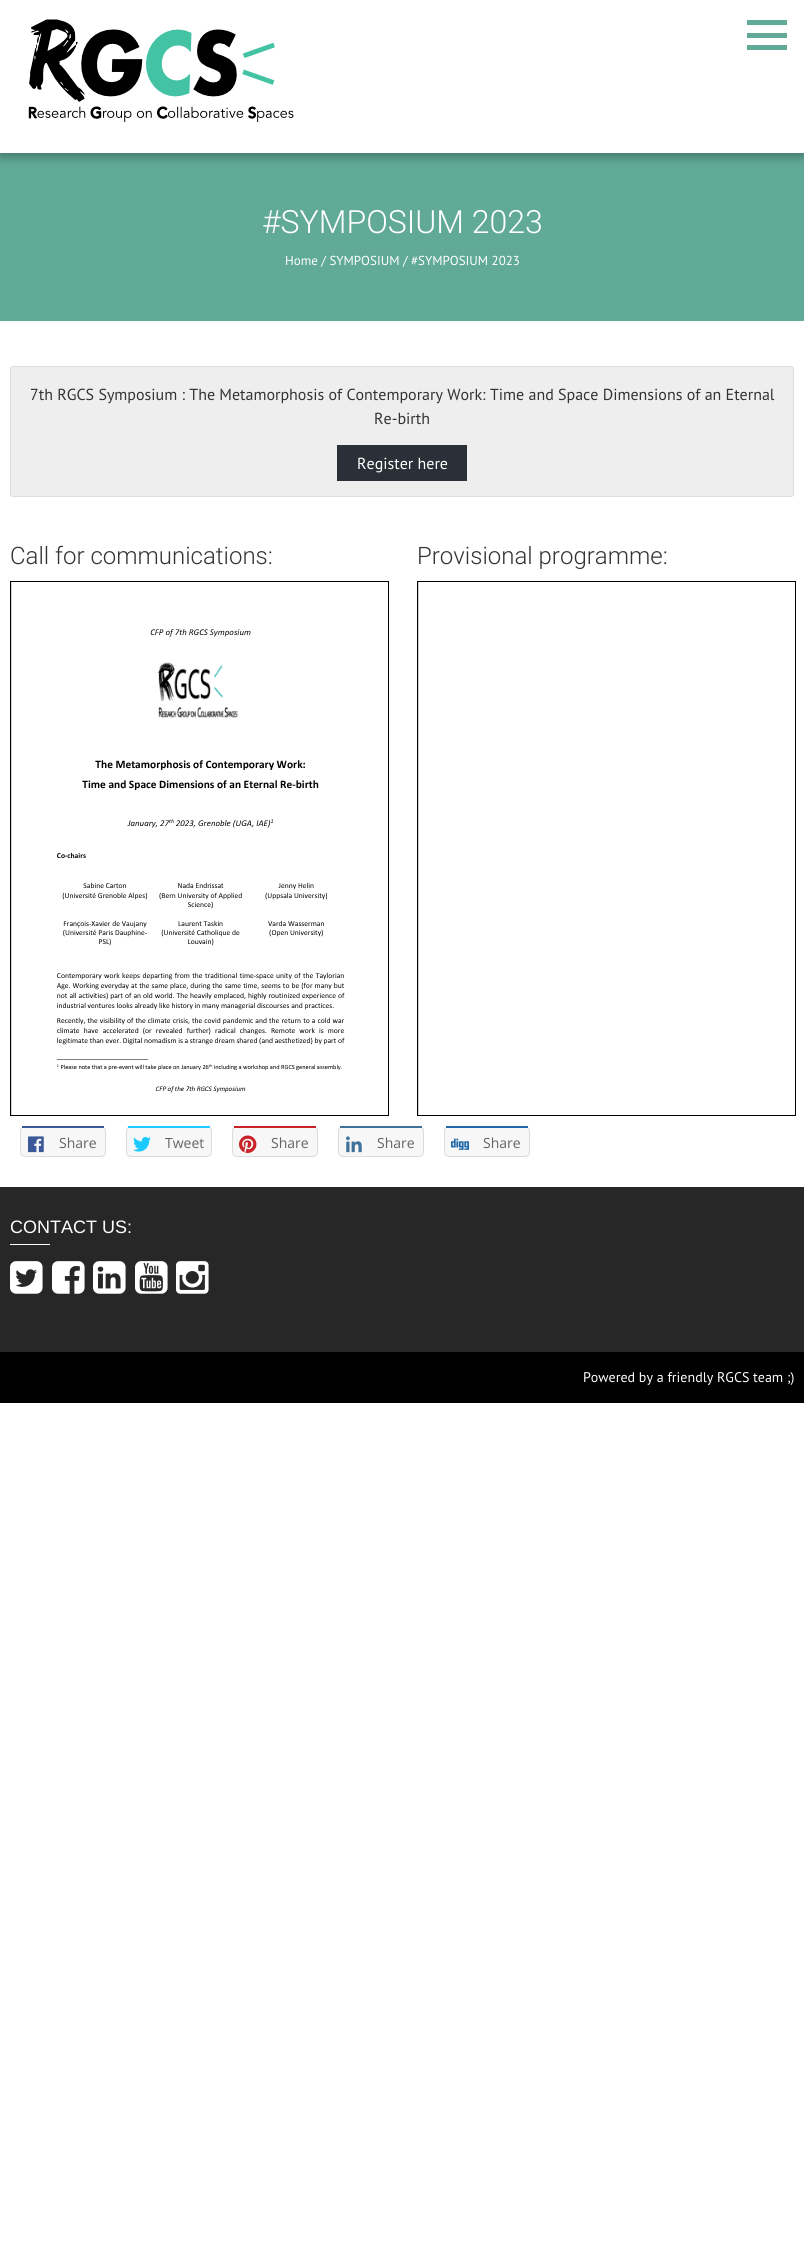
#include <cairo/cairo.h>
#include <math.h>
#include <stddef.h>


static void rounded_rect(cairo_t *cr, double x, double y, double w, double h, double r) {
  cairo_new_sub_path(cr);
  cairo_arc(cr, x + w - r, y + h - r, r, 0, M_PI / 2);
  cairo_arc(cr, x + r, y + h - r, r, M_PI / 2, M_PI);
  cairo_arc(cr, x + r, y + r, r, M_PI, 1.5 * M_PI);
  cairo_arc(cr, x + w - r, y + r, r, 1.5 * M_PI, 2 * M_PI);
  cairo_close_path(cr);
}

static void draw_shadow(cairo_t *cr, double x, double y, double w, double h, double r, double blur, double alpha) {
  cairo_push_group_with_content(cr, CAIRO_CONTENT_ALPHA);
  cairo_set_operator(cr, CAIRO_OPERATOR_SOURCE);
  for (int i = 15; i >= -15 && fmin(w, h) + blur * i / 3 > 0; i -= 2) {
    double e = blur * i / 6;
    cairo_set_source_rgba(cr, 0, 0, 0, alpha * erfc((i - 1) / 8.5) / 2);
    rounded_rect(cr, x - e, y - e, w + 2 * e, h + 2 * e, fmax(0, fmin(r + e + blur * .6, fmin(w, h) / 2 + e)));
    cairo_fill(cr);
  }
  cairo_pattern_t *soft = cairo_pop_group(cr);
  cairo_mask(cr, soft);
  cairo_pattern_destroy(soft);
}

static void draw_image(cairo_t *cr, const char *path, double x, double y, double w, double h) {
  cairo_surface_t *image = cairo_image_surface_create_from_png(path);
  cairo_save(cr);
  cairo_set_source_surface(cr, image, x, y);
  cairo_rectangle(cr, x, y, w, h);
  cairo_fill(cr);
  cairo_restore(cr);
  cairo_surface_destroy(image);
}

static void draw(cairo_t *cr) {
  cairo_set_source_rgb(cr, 1, 1, 1);
  cairo_paint(cr);
  cairo_set_source_rgb(cr, 97 / 255.0, 170 / 255.0, 151 / 255.0);
  cairo_rectangle(cr, 0, 153, 804, 168);
  cairo_fill(cr);
  cairo_set_source_rgb(cr, 0, 0, 0);
  draw_shadow(cr, 0, 4, 804, 153, 0, 5, 0.3);
  cairo_set_source_rgb(cr, 1, 1, 1);
  cairo_rectangle(cr, 0, 0, 804, 153);
  cairo_fill(cr);
  draw_image(cr, "images/1.png", 28, 19, 266, 103);
  cairo_set_source_rgb(cr, 97 / 255.0, 170 / 255.0, 151 / 255.0);
  cairo_rectangle(cr, 747, 20, 40, 5);
  cairo_fill(cr);
  cairo_rectangle(cr, 747, 33, 40, 5);
  cairo_fill(cr);
  cairo_rectangle(cr, 747, 45, 40, 5);
  cairo_fill(cr);
  cairo_set_source_rgb(cr, 238 / 255.0, 238 / 255.0, 238 / 255.0);
  rounded_rect(cr, 10.5, 366.5, 783, 130, 2.5);
  cairo_fill_preserve(cr);
  cairo_set_source_rgb(cr, 221 / 255.0, 221 / 255.0, 221 / 255.0);
  cairo_set_line_width(cr, 1);
  cairo_stroke(cr);
  cairo_set_source_rgb(cr, 41 / 255.0, 48 / 255.0, 55 / 255.0);
  cairo_rectangle(cr, 337, 445, 130, 36);
  cairo_fill(cr);
  cairo_set_source_rgb(cr, 211 / 255.0, 211 / 255.0, 211 / 255.0);
  cairo_rectangle(cr, 11, 582, 1, 533);
  cairo_fill(cr);
  cairo_rectangle(cr, 10.5, 581.5, 378, 534);
  cairo_set_source_rgb(cr, 0, 0, 0);
  cairo_stroke(cr);
  draw_image(cr, "images/2.png", 56, 629, 289, 464);
  cairo_set_source_rgb(cr, 211 / 255.0, 211 / 255.0, 211 / 255.0);
  cairo_rectangle(cr, 418, 582, 1, 533);
  cairo_fill(cr);
  cairo_rectangle(cr, 417.5, 581.5, 378, 534);
  cairo_set_source_rgb(cr, 0, 0, 0);
  cairo_stroke(cr);
  cairo_set_source_rgb(cr, 247 / 255.0, 247 / 255.0, 247 / 255.0);
  rounded_rect(cr, 20.5, 1126.5, 85, 30, 4.5);
  cairo_fill_preserve(cr);
  cairo_set_source_rgb(cr, 220 / 255.0, 220 / 255.0, 220 / 255.0);
  cairo_stroke(cr);
  cairo_set_source_rgb(cr, 59 / 255.0, 89 / 255.0, 152 / 255.0);
  cairo_rectangle(cr, 22, 1126, 82, 2);
  cairo_fill(cr);
  draw_image(cr, "images/3.png", 28, 1136, 16, 17);
  cairo_set_source_rgb(cr, 247 / 255.0, 247 / 255.0, 247 / 255.0);
  rounded_rect(cr, 126.5, 1126.5, 85, 30, 4.5);
  cairo_fill_preserve(cr);
  cairo_set_source_rgb(cr, 220 / 255.0, 220 / 255.0, 220 / 255.0);
  cairo_stroke(cr);
  cairo_set_source_rgb(cr, 29 / 255.0, 202 / 255.0, 1);
  cairo_rectangle(cr, 128, 1126, 82, 2);
  cairo_fill(cr);
  draw_image(cr, "images/4.png", 133, 1136, 18, 16);
  cairo_set_source_rgb(cr, 247 / 255.0, 247 / 255.0, 247 / 255.0);
  rounded_rect(cr, 232.5, 1126.5, 85, 30, 4.5);
  cairo_fill_preserve(cr);
  cairo_set_source_rgb(cr, 220 / 255.0, 220 / 255.0, 220 / 255.0);
  cairo_stroke(cr);
  cairo_set_source_rgb(cr, 201 / 255.0, 34 / 255.0, 40 / 255.0);
  cairo_rectangle(cr, 234, 1126, 82, 2);
  cairo_fill(cr);
  draw_image(cr, "images/5.png", 239, 1135, 18, 18);
  cairo_set_source_rgb(cr, 247 / 255.0, 247 / 255.0, 247 / 255.0);
  rounded_rect(cr, 338.5, 1126.5, 85, 30, 4.5);
  cairo_fill_preserve(cr);
  cairo_set_source_rgb(cr, 220 / 255.0, 220 / 255.0, 220 / 255.0);
  cairo_stroke(cr);
  cairo_set_source_rgb(cr, 63 / 255.0, 114 / 255.0, 155 / 255.0);
  cairo_rectangle(cr, 340, 1126, 82, 2);
  cairo_fill(cr);
  draw_image(cr, "images/6.png", 346, 1136, 16, 17);
  cairo_set_source_rgb(cr, 247 / 255.0, 247 / 255.0, 247 / 255.0);
  rounded_rect(cr, 444.5, 1126.5, 85, 30, 4.5);
  cairo_fill_preserve(cr);
  cairo_set_source_rgb(cr, 220 / 255.0, 220 / 255.0, 220 / 255.0);
  cairo_stroke(cr);
  cairo_set_source_rgb(cr, 33 / 255.0, 105 / 255.0, 168 / 255.0);
  cairo_rectangle(cr, 446, 1126, 82, 2);
  cairo_fill(cr);
  draw_image(cr, "images/7.png", 451, 1138, 18, 12);
  cairo_set_source_rgb(cr, 0, 0, 0);
  cairo_rectangle(cr, 0, 1352, 804, 51);
  cairo_fill(cr);
  cairo_set_source_rgb(cr, 39 / 255.0, 39 / 255.0, 39 / 255.0);
  cairo_rectangle(cr, 0, 1187, 804, 165);
  cairo_fill(cr);
  cairo_set_source_rgb(cr, 1, 1, 1);
  cairo_rectangle(cr, 10, 1244, 40, 1);
  cairo_fill(cr);
  draw_image(cr, "images/8.png", 10, 1261, 33, 33);
  draw_image(cr, "images/9.png", 52, 1261, 33, 33);
  draw_image(cr, "images/10.png", 93, 1261, 33, 33);
  draw_image(cr, "images/11.png", 135, 1261, 33, 33);
  draw_image(cr, "images/12.png", 176, 1261, 33, 33);
  cairo_select_font_face(cr, "Roboto Light", CAIRO_FONT_SLANT_NORMAL, CAIRO_FONT_WEIGHT_NORMAL);
  cairo_set_font_size(cr, 32);
  cairo_move_to(cr, 262, 233);
  cairo_show_text(cr, "#SYMPOSIUM 2023");
  cairo_select_font_face(cr, "PT Sans", CAIRO_FONT_SLANT_NORMAL, CAIRO_FONT_WEIGHT_NORMAL);
  cairo_set_font_size(cr, 13);
  cairo_move_to(cr, 285, 265);
  cairo_show_text(cr, "Home / SYMPOSIUM / #SYMPOSIUM 2023");
  cairo_set_font_size(cr, 16);
  cairo_set_source_rgb(cr, 51 / 255.0, 51 / 255.0, 51 / 255.0);
  cairo_move_to(cr, 30, 400);
  cairo_show_text(cr, "7th RGCS Symposium : The Metamorphosis of Contemporary Work: Time and Space Dimensions of an Eternal");
  cairo_move_to(cr, 374, 424);
  cairo_show_text(cr, "Re-birth");
  cairo_set_source_rgb(cr, 1, 1, 1);
  cairo_move_to(cr, 357, 469);
  cairo_show_text(cr, "Register here");
  cairo_select_font_face(cr, "Roboto Light", CAIRO_FONT_SLANT_NORMAL, CAIRO_FONT_WEIGHT_NORMAL);
  cairo_set_font_size(cr, 24);
  cairo_set_source_rgb(cr, 51 / 255.0, 51 / 255.0, 51 / 255.0);
  cairo_move_to(cr, 10, 564);
  cairo_show_text(cr, "Call for communications:");
  cairo_move_to(cr, 417, 564);
  cairo_show_text(cr, "Provisional programme:");
  cairo_select_font_face(cr, "Open Sans", CAIRO_FONT_SLANT_NORMAL, CAIRO_FONT_WEIGHT_NORMAL);
  cairo_set_font_size(cr, 14);
  cairo_set_source_rgb(cr, 99 / 255.0, 99 / 255.0, 99 / 255.0);
  cairo_move_to(cr, 59, 1148);
  cairo_show_text(cr, "Share");
  cairo_move_to(cr, 165, 1148);
  cairo_show_text(cr, "Tweet");
  cairo_move_to(cr, 271, 1148);
  cairo_show_text(cr, "Share");
  cairo_move_to(cr, 377, 1148);
  cairo_show_text(cr, "Share");
  cairo_move_to(cr, 483, 1148);
  cairo_show_text(cr, "Share");
  cairo_select_font_face(cr, "Liberation Sans", CAIRO_FONT_SLANT_NORMAL, CAIRO_FONT_WEIGHT_NORMAL);
  cairo_set_font_size(cr, 18);
  cairo_set_source_rgb(cr, 1, 1, 1);
  cairo_move_to(cr, 10, 1233);
  cairo_show_text(cr, "CONTACT US:");
  cairo_select_font_face(cr, "PT Sans", CAIRO_FONT_SLANT_NORMAL, CAIRO_FONT_WEIGHT_NORMAL);
  cairo_set_font_size(cr, 14);
  cairo_move_to(cr, 583, 1382);
  cairo_show_text(cr, "Powered by a friendly RGCS team ;)");
}

int main(void) {
  cairo_surface_t *surface = cairo_image_surface_create(CAIRO_FORMAT_RGB24, 804, 2248);
  cairo_t *cr = cairo_create(surface);
  cairo_font_options_t *options = cairo_font_options_create();
  cairo_font_options_set_hint_metrics(options, CAIRO_HINT_METRICS_OFF);
  cairo_font_options_set_hint_style(options, CAIRO_HINT_STYLE_NONE);
  cairo_set_font_options(cr, options);
  cairo_set_miter_limit(cr, 4);
  draw(cr);
  cairo_surface_write_to_png(surface, "out.png");
  cairo_font_options_destroy(options);
  cairo_destroy(cr);
  cairo_surface_destroy(surface);
  return 0;
}
